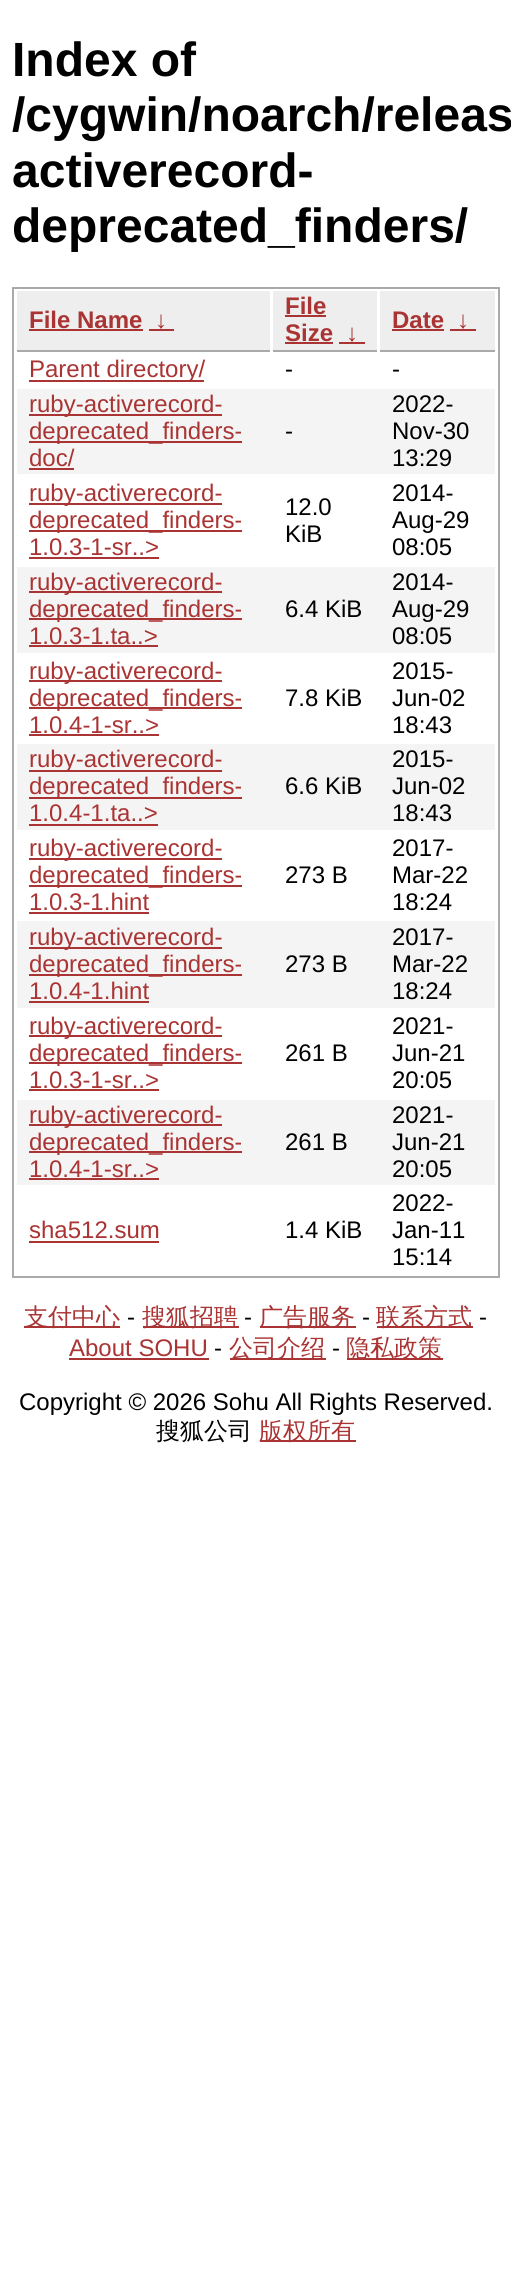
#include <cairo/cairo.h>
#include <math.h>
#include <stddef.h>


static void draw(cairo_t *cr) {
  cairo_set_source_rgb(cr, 1, 1, 1);
  cairo_paint(cr);
  cairo_rectangle(cr, 13, 288, 486, 989);
  cairo_set_source_rgb(cr, 170 / 255.0, 170 / 255.0, 170 / 255.0);
  cairo_stroke(cr);
  cairo_set_source_rgb(cr, 238 / 255.0, 238 / 255.0, 238 / 255.0);
  cairo_rectangle(cr, 17, 291, 253, 59);
  cairo_fill(cr);
  cairo_set_source_rgb(cr, 170 / 255.0, 170 / 255.0, 170 / 255.0);
  cairo_rectangle(cr, 17, 350, 253, 2);
  cairo_fill(cr);
  cairo_set_source_rgb(cr, 170 / 255.0, 51 / 255.0, 51 / 255.0);
  cairo_rectangle(cr, 29, 329, 114, 2);
  cairo_fill(cr);
  cairo_rectangle(cr, 149, 329, 25, 2);
  cairo_fill(cr);
  cairo_set_source_rgb(cr, 238 / 255.0, 238 / 255.0, 238 / 255.0);
  cairo_rectangle(cr, 273, 291, 104, 59);
  cairo_fill(cr);
  cairo_set_source_rgb(cr, 170 / 255.0, 170 / 255.0, 170 / 255.0);
  cairo_rectangle(cr, 273, 350, 104, 2);
  cairo_fill(cr);
  cairo_set_source_rgb(cr, 170 / 255.0, 51 / 255.0, 51 / 255.0);
  cairo_rectangle(cr, 285, 315, 41, 2);
  cairo_fill(cr);
  cairo_rectangle(cr, 285, 342, 48, 2);
  cairo_fill(cr);
  cairo_rectangle(cr, 339, 342, 26, 2);
  cairo_fill(cr);
  cairo_set_source_rgb(cr, 238 / 255.0, 238 / 255.0, 238 / 255.0);
  cairo_rectangle(cr, 380, 291, 115, 59);
  cairo_fill(cr);
  cairo_set_source_rgb(cr, 170 / 255.0, 170 / 255.0, 170 / 255.0);
  cairo_rectangle(cr, 380, 350, 115, 2);
  cairo_fill(cr);
  cairo_set_source_rgb(cr, 170 / 255.0, 51 / 255.0, 51 / 255.0);
  cairo_rectangle(cr, 392, 329, 52, 2);
  cairo_fill(cr);
  cairo_rectangle(cr, 450, 329, 26, 2);
  cairo_fill(cr);
  cairo_rectangle(cr, 29, 380, 175, 2);
  cairo_fill(cr);
  cairo_set_source_rgb(cr, 244 / 255.0, 244 / 255.0, 244 / 255.0);
  cairo_rectangle(cr, 17, 389, 478, 85);
  cairo_fill(cr);
  cairo_set_source_rgb(cr, 170 / 255.0, 51 / 255.0, 51 / 255.0);
  cairo_rectangle(cr, 29, 414, 193, 2);
  cairo_fill(cr);
  cairo_rectangle(cr, 29, 441, 213, 2);
  cairo_fill(cr);
  cairo_rectangle(cr, 29, 468, 45, 2);
  cairo_fill(cr);
  cairo_rectangle(cr, 29, 503, 193, 2);
  cairo_fill(cr);
  cairo_rectangle(cr, 29, 530, 213, 2);
  cairo_fill(cr);
  cairo_rectangle(cr, 29, 557, 130, 2);
  cairo_fill(cr);
  cairo_set_source_rgb(cr, 244 / 255.0, 244 / 255.0, 244 / 255.0);
  cairo_rectangle(cr, 17, 567, 478, 86);
  cairo_fill(cr);
  cairo_set_source_rgb(cr, 170 / 255.0, 51 / 255.0, 51 / 255.0);
  cairo_rectangle(cr, 29, 591, 193, 2);
  cairo_fill(cr);
  cairo_rectangle(cr, 29, 618, 213, 2);
  cairo_fill(cr);
  cairo_rectangle(cr, 29, 645, 129, 2);
  cairo_fill(cr);
  cairo_rectangle(cr, 29, 680, 193, 2);
  cairo_fill(cr);
  cairo_rectangle(cr, 29, 707, 213, 2);
  cairo_fill(cr);
  cairo_rectangle(cr, 29, 734, 130, 2);
  cairo_fill(cr);
  cairo_set_source_rgb(cr, 244 / 255.0, 244 / 255.0, 244 / 255.0);
  cairo_rectangle(cr, 17, 744, 478, 86);
  cairo_fill(cr);
  cairo_set_source_rgb(cr, 170 / 255.0, 51 / 255.0, 51 / 255.0);
  cairo_rectangle(cr, 29, 770, 193, 2);
  cairo_fill(cr);
  cairo_rectangle(cr, 29, 797, 213, 2);
  cairo_fill(cr);
  cairo_rectangle(cr, 29, 824, 129, 2);
  cairo_fill(cr);
  cairo_rectangle(cr, 29, 858, 193, 2);
  cairo_fill(cr);
  cairo_rectangle(cr, 29, 885, 213, 2);
  cairo_fill(cr);
  cairo_rectangle(cr, 29, 912, 120, 2);
  cairo_fill(cr);
  cairo_set_source_rgb(cr, 244 / 255.0, 244 / 255.0, 244 / 255.0);
  cairo_rectangle(cr, 17, 921, 478, 87);
  cairo_fill(cr);
  cairo_set_source_rgb(cr, 170 / 255.0, 51 / 255.0, 51 / 255.0);
  cairo_rectangle(cr, 29, 947, 193, 2);
  cairo_fill(cr);
  cairo_rectangle(cr, 29, 974, 213, 2);
  cairo_fill(cr);
  cairo_rectangle(cr, 29, 1001, 120, 2);
  cairo_fill(cr);
  cairo_rectangle(cr, 29, 1035, 193, 2);
  cairo_fill(cr);
  cairo_rectangle(cr, 29, 1062, 213, 2);
  cairo_fill(cr);
  cairo_rectangle(cr, 29, 1089, 130, 2);
  cairo_fill(cr);
  cairo_set_source_rgb(cr, 244 / 255.0, 244 / 255.0, 244 / 255.0);
  cairo_rectangle(cr, 17, 1100, 478, 85);
  cairo_fill(cr);
  cairo_set_source_rgb(cr, 170 / 255.0, 51 / 255.0, 51 / 255.0);
  cairo_rectangle(cr, 29, 1124, 193, 2);
  cairo_fill(cr);
  cairo_rectangle(cr, 29, 1151, 213, 2);
  cairo_fill(cr);
  cairo_rectangle(cr, 29, 1178, 130, 2);
  cairo_fill(cr);
  cairo_rectangle(cr, 29, 1241, 130, 2);
  cairo_fill(cr);
  cairo_rectangle(cr, 24, 1326, 96, 2);
  cairo_fill(cr);
  cairo_rectangle(cr, 143, 1326, 96, 2);
  cairo_fill(cr);
  cairo_rectangle(cr, 260, 1326, 96, 2);
  cairo_fill(cr);
  cairo_rectangle(cr, 377, 1326, 96, 2);
  cairo_fill(cr);
  cairo_rectangle(cr, 69, 1358, 140, 2);
  cairo_fill(cr);
  cairo_rectangle(cr, 230, 1358, 96, 2);
  cairo_fill(cr);
  cairo_rectangle(cr, 347, 1358, 96, 2);
  cairo_fill(cr);
  cairo_rectangle(cr, 260, 1440, 96, 2);
  cairo_fill(cr);
  cairo_select_font_face(cr, "Liberation Sans", CAIRO_FONT_SLANT_NORMAL, CAIRO_FONT_WEIGHT_BOLD);
  cairo_set_font_size(cr, 48);
  cairo_set_source_rgb(cr, 0, 0, 0);
  cairo_move_to(cr, 12, 76);
  cairo_show_text(cr, "Index of");
  cairo_move_to(cr, 12, 131);
  cairo_show_text(cr, "/cygwin/noarch/releas");
  cairo_move_to(cr, 12, 187);
  cairo_show_text(cr, "activerecord-");
  cairo_move_to(cr, 12, 242);
  cairo_show_text(cr, "deprecated_finders/");
  cairo_set_font_size(cr, 24);
  cairo_set_source_rgb(cr, 170 / 255.0, 51 / 255.0, 51 / 255.0);
  cairo_move_to(cr, 29, 328);
  cairo_show_text(cr, "File Name");
  cairo_move_to(cr, 155, 328);
  cairo_show_text(cr, "↓");
  cairo_move_to(cr, 285, 314);
  cairo_show_text(cr, "File");
  cairo_move_to(cr, 285, 341);
  cairo_show_text(cr, "Size");
  cairo_move_to(cr, 346, 341);
  cairo_show_text(cr, "↓");
  cairo_move_to(cr, 392, 328);
  cairo_show_text(cr, "Date");
  cairo_move_to(cr, 457, 328);
  cairo_show_text(cr, "↓");
  cairo_select_font_face(cr, "Liberation Sans", CAIRO_FONT_SLANT_NORMAL, CAIRO_FONT_WEIGHT_NORMAL);
  cairo_move_to(cr, 29, 377);
  cairo_show_text(cr, "Parent directory/");
  cairo_set_source_rgb(cr, 0, 0, 0);
  cairo_move_to(cr, 285, 377);
  cairo_show_text(cr, "-");
  cairo_move_to(cr, 392, 377);
  cairo_show_text(cr, "-");
  cairo_set_source_rgb(cr, 170 / 255.0, 51 / 255.0, 51 / 255.0);
  cairo_move_to(cr, 29, 412);
  cairo_show_text(cr, "ruby-activerecord-");
  cairo_move_to(cr, 29, 439);
  cairo_show_text(cr, "deprecated_finders-");
  cairo_move_to(cr, 29, 466);
  cairo_show_text(cr, "doc/");
  cairo_set_source_rgb(cr, 0, 0, 0);
  cairo_move_to(cr, 285, 439);
  cairo_show_text(cr, "-");
  cairo_move_to(cr, 392, 412);
  cairo_show_text(cr, "2022-");
  cairo_move_to(cr, 392, 439);
  cairo_show_text(cr, "Nov-30");
  cairo_move_to(cr, 392, 466);
  cairo_show_text(cr, "13:29");
  cairo_set_source_rgb(cr, 170 / 255.0, 51 / 255.0, 51 / 255.0);
  cairo_move_to(cr, 29, 501);
  cairo_show_text(cr, "ruby-activerecord-");
  cairo_move_to(cr, 29, 528);
  cairo_show_text(cr, "deprecated_finders-");
  cairo_move_to(cr, 29, 555);
  cairo_show_text(cr, "1.0.3-1-sr..>");
  cairo_set_source_rgb(cr, 0, 0, 0);
  cairo_move_to(cr, 285, 515);
  cairo_show_text(cr, "12.0");
  cairo_move_to(cr, 285, 542);
  cairo_show_text(cr, "KiB");
  cairo_move_to(cr, 392, 501);
  cairo_show_text(cr, "2014-");
  cairo_move_to(cr, 392, 528);
  cairo_show_text(cr, "Aug-29");
  cairo_move_to(cr, 392, 555);
  cairo_show_text(cr, "08:05");
  cairo_set_source_rgb(cr, 170 / 255.0, 51 / 255.0, 51 / 255.0);
  cairo_move_to(cr, 29, 590);
  cairo_show_text(cr, "ruby-activerecord-");
  cairo_move_to(cr, 29, 617);
  cairo_show_text(cr, "deprecated_finders-");
  cairo_move_to(cr, 29, 644);
  cairo_show_text(cr, "1.0.3-1.ta..>");
  cairo_set_source_rgb(cr, 0, 0, 0);
  cairo_move_to(cr, 285, 617);
  cairo_show_text(cr, "6.4 KiB");
  cairo_move_to(cr, 392, 590);
  cairo_show_text(cr, "2014-");
  cairo_move_to(cr, 392, 617);
  cairo_show_text(cr, "Aug-29");
  cairo_move_to(cr, 392, 644);
  cairo_show_text(cr, "08:05");
  cairo_set_source_rgb(cr, 170 / 255.0, 51 / 255.0, 51 / 255.0);
  cairo_move_to(cr, 29, 679);
  cairo_show_text(cr, "ruby-activerecord-");
  cairo_move_to(cr, 29, 706);
  cairo_show_text(cr, "deprecated_finders-");
  cairo_move_to(cr, 29, 733);
  cairo_show_text(cr, "1.0.4-1-sr..>");
  cairo_set_source_rgb(cr, 0, 0, 0);
  cairo_move_to(cr, 285, 706);
  cairo_show_text(cr, "7.8 KiB");
  cairo_move_to(cr, 392, 679);
  cairo_show_text(cr, "2015-");
  cairo_move_to(cr, 392, 706);
  cairo_show_text(cr, "Jun-02");
  cairo_move_to(cr, 392, 733);
  cairo_show_text(cr, "18:43");
  cairo_set_source_rgb(cr, 170 / 255.0, 51 / 255.0, 51 / 255.0);
  cairo_move_to(cr, 29, 767);
  cairo_show_text(cr, "ruby-activerecord-");
  cairo_move_to(cr, 29, 794);
  cairo_show_text(cr, "deprecated_finders-");
  cairo_move_to(cr, 29, 821);
  cairo_show_text(cr, "1.0.4-1.ta..>");
  cairo_set_source_rgb(cr, 0, 0, 0);
  cairo_move_to(cr, 285, 794);
  cairo_show_text(cr, "6.6 KiB");
  cairo_move_to(cr, 392, 767);
  cairo_show_text(cr, "2015-");
  cairo_move_to(cr, 392, 794);
  cairo_show_text(cr, "Jun-02");
  cairo_move_to(cr, 392, 821);
  cairo_show_text(cr, "18:43");
  cairo_set_source_rgb(cr, 170 / 255.0, 51 / 255.0, 51 / 255.0);
  cairo_move_to(cr, 29, 856);
  cairo_show_text(cr, "ruby-activerecord-");
  cairo_move_to(cr, 29, 883);
  cairo_show_text(cr, "deprecated_finders-");
  cairo_move_to(cr, 29, 910);
  cairo_show_text(cr, "1.0.3-1.hint");
  cairo_set_source_rgb(cr, 0, 0, 0);
  cairo_move_to(cr, 285, 883);
  cairo_show_text(cr, "273 B");
  cairo_move_to(cr, 392, 856);
  cairo_show_text(cr, "2017-");
  cairo_move_to(cr, 392, 883);
  cairo_show_text(cr, "Mar-22");
  cairo_move_to(cr, 392, 910);
  cairo_show_text(cr, "18:24");
  cairo_set_source_rgb(cr, 170 / 255.0, 51 / 255.0, 51 / 255.0);
  cairo_move_to(cr, 29, 945);
  cairo_show_text(cr, "ruby-activerecord-");
  cairo_move_to(cr, 29, 972);
  cairo_show_text(cr, "deprecated_finders-");
  cairo_move_to(cr, 29, 999);
  cairo_show_text(cr, "1.0.4-1.hint");
  cairo_set_source_rgb(cr, 0, 0, 0);
  cairo_move_to(cr, 285, 972);
  cairo_show_text(cr, "273 B");
  cairo_move_to(cr, 392, 945);
  cairo_show_text(cr, "2017-");
  cairo_move_to(cr, 392, 972);
  cairo_show_text(cr, "Mar-22");
  cairo_move_to(cr, 392, 999);
  cairo_show_text(cr, "18:24");
  cairo_set_source_rgb(cr, 170 / 255.0, 51 / 255.0, 51 / 255.0);
  cairo_move_to(cr, 29, 1034);
  cairo_show_text(cr, "ruby-activerecord-");
  cairo_move_to(cr, 29, 1061);
  cairo_show_text(cr, "deprecated_finders-");
  cairo_move_to(cr, 29, 1088);
  cairo_show_text(cr, "1.0.3-1-sr..>");
  cairo_set_source_rgb(cr, 0, 0, 0);
  cairo_move_to(cr, 285, 1061);
  cairo_show_text(cr, "261 B");
  cairo_move_to(cr, 392, 1034);
  cairo_show_text(cr, "2021-");
  cairo_move_to(cr, 392, 1061);
  cairo_show_text(cr, "Jun-21");
  cairo_move_to(cr, 392, 1088);
  cairo_show_text(cr, "20:05");
  cairo_set_source_rgb(cr, 170 / 255.0, 51 / 255.0, 51 / 255.0);
  cairo_move_to(cr, 29, 1123);
  cairo_show_text(cr, "ruby-activerecord-");
  cairo_move_to(cr, 29, 1150);
  cairo_show_text(cr, "deprecated_finders-");
  cairo_move_to(cr, 29, 1177);
  cairo_show_text(cr, "1.0.4-1-sr..>");
  cairo_set_source_rgb(cr, 0, 0, 0);
  cairo_move_to(cr, 285, 1150);
  cairo_show_text(cr, "261 B");
  cairo_move_to(cr, 392, 1123);
  cairo_show_text(cr, "2021-");
  cairo_move_to(cr, 392, 1150);
  cairo_show_text(cr, "Jun-21");
  cairo_move_to(cr, 392, 1177);
  cairo_show_text(cr, "20:05");
  cairo_set_source_rgb(cr, 170 / 255.0, 51 / 255.0, 51 / 255.0);
  cairo_move_to(cr, 29, 1238);
  cairo_show_text(cr, "sha512.sum");
  cairo_set_source_rgb(cr, 0, 0, 0);
  cairo_move_to(cr, 285, 1238);
  cairo_show_text(cr, "1.4 KiB");
  cairo_move_to(cr, 392, 1211);
  cairo_show_text(cr, "2022-");
  cairo_move_to(cr, 392, 1238);
  cairo_show_text(cr, "Jan-11");
  cairo_move_to(cr, 392, 1265);
  cairo_show_text(cr, "15:14");
  cairo_select_font_face(cr, "WenQuanYi Zen Hei Medium", CAIRO_FONT_SLANT_NORMAL, CAIRO_FONT_WEIGHT_NORMAL);
  cairo_set_source_rgb(cr, 170 / 255.0, 51 / 255.0, 51 / 255.0);
  cairo_move_to(cr, 24, 1325);
  cairo_show_text(cr, "支付中心");
  cairo_select_font_face(cr, "Liberation Sans", CAIRO_FONT_SLANT_NORMAL, CAIRO_FONT_WEIGHT_NORMAL);
  cairo_set_source_rgb(cr, 0, 0, 0);
  cairo_move_to(cr, 127, 1325);
  cairo_show_text(cr, "-");
  cairo_select_font_face(cr, "WenQuanYi Zen Hei Medium", CAIRO_FONT_SLANT_NORMAL, CAIRO_FONT_WEIGHT_NORMAL);
  cairo_set_source_rgb(cr, 170 / 255.0, 51 / 255.0, 51 / 255.0);
  cairo_move_to(cr, 142, 1325);
  cairo_show_text(cr, "搜狐招聘");
  cairo_select_font_face(cr, "Liberation Sans", CAIRO_FONT_SLANT_NORMAL, CAIRO_FONT_WEIGHT_NORMAL);
  cairo_set_source_rgb(cr, 0, 0, 0);
  cairo_move_to(cr, 244, 1325);
  cairo_show_text(cr, "-");
  cairo_select_font_face(cr, "WenQuanYi Zen Hei Medium", CAIRO_FONT_SLANT_NORMAL, CAIRO_FONT_WEIGHT_NORMAL);
  cairo_set_source_rgb(cr, 170 / 255.0, 51 / 255.0, 51 / 255.0);
  cairo_move_to(cr, 259, 1325);
  cairo_show_text(cr, "广告服务");
  cairo_select_font_face(cr, "Liberation Sans", CAIRO_FONT_SLANT_NORMAL, CAIRO_FONT_WEIGHT_NORMAL);
  cairo_set_source_rgb(cr, 0, 0, 0);
  cairo_move_to(cr, 362, 1325);
  cairo_show_text(cr, "-");
  cairo_select_font_face(cr, "WenQuanYi Zen Hei Medium", CAIRO_FONT_SLANT_NORMAL, CAIRO_FONT_WEIGHT_NORMAL);
  cairo_set_source_rgb(cr, 170 / 255.0, 51 / 255.0, 51 / 255.0);
  cairo_move_to(cr, 376, 1325);
  cairo_show_text(cr, "联系方式");
  cairo_select_font_face(cr, "Liberation Sans", CAIRO_FONT_SLANT_NORMAL, CAIRO_FONT_WEIGHT_NORMAL);
  cairo_set_source_rgb(cr, 0, 0, 0);
  cairo_move_to(cr, 479, 1325);
  cairo_show_text(cr, "-");
  cairo_set_source_rgb(cr, 170 / 255.0, 51 / 255.0, 51 / 255.0);
  cairo_move_to(cr, 69, 1356);
  cairo_show_text(cr, "About SOHU");
  cairo_set_source_rgb(cr, 0, 0, 0);
  cairo_move_to(cr, 214, 1356);
  cairo_show_text(cr, "-");
  cairo_select_font_face(cr, "WenQuanYi Zen Hei Medium", CAIRO_FONT_SLANT_NORMAL, CAIRO_FONT_WEIGHT_NORMAL);
  cairo_set_source_rgb(cr, 170 / 255.0, 51 / 255.0, 51 / 255.0);
  cairo_move_to(cr, 229, 1356);
  cairo_show_text(cr, "公司介绍");
  cairo_select_font_face(cr, "Liberation Sans", CAIRO_FONT_SLANT_NORMAL, CAIRO_FONT_WEIGHT_NORMAL);
  cairo_set_source_rgb(cr, 0, 0, 0);
  cairo_move_to(cr, 332, 1356);
  cairo_show_text(cr, "-");
  cairo_select_font_face(cr, "WenQuanYi Zen Hei Medium", CAIRO_FONT_SLANT_NORMAL, CAIRO_FONT_WEIGHT_NORMAL);
  cairo_set_source_rgb(cr, 170 / 255.0, 51 / 255.0, 51 / 255.0);
  cairo_move_to(cr, 346, 1356);
  cairo_show_text(cr, "隐私政策");
  cairo_select_font_face(cr, "Liberation Sans", CAIRO_FONT_SLANT_NORMAL, CAIRO_FONT_WEIGHT_NORMAL);
  cairo_set_source_rgb(cr, 0, 0, 0);
  cairo_move_to(cr, 19, 1410);
  cairo_show_text(cr, "Copyright © 2026 Sohu All Rights Reserved.");
  cairo_select_font_face(cr, "WenQuanYi Zen Hei Medium", CAIRO_FONT_SLANT_NORMAL, CAIRO_FONT_WEIGHT_NORMAL);
  cairo_move_to(cr, 156, 1439);
  cairo_show_text(cr, "搜狐公司");
  cairo_set_source_rgb(cr, 170 / 255.0, 51 / 255.0, 51 / 255.0);
  cairo_move_to(cr, 259, 1439);
  cairo_show_text(cr, "版权所有");
}

int main(void) {
  cairo_surface_t *surface = cairo_image_surface_create(CAIRO_FORMAT_RGB24, 511, 2272);
  cairo_t *cr = cairo_create(surface);
  cairo_font_options_t *options = cairo_font_options_create();
  cairo_font_options_set_hint_metrics(options, CAIRO_HINT_METRICS_OFF);
  cairo_font_options_set_hint_style(options, CAIRO_HINT_STYLE_NONE);
  cairo_set_font_options(cr, options);
  cairo_set_miter_limit(cr, 4);
  draw(cr);
  cairo_surface_write_to_png(surface, "out.png");
  cairo_font_options_destroy(options);
  cairo_destroy(cr);
  cairo_surface_destroy(surface);
  return 0;
}
